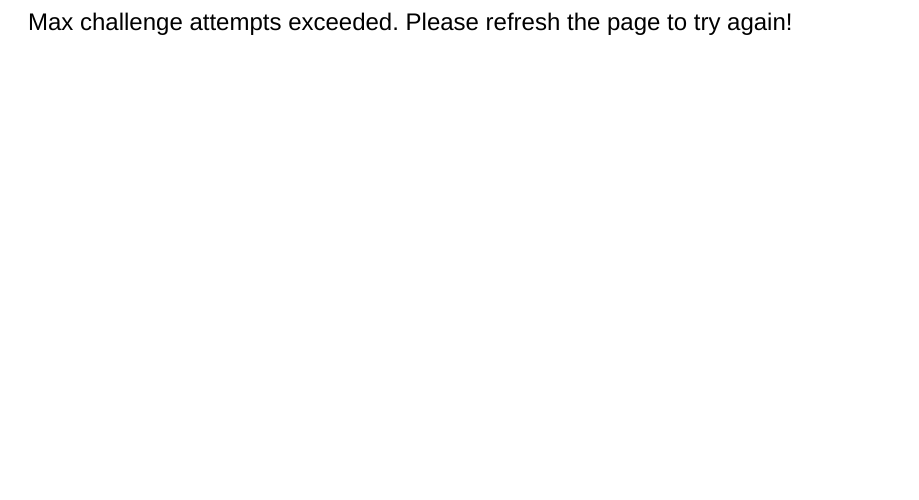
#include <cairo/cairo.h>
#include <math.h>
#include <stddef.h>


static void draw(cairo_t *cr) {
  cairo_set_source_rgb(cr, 1, 1, 1);
  cairo_paint(cr);
  cairo_select_font_face(cr, "Liberation Sans", CAIRO_FONT_SLANT_NORMAL, CAIRO_FONT_WEIGHT_NORMAL);
  cairo_set_font_size(cr, 24);
  cairo_set_source_rgb(cr, 0, 0, 0);
  cairo_move_to(cr, 28, 30);
  cairo_show_text(cr, "Max challenge attempts exceeded. Please refresh the page to try again!");
}

int main(void) {
  cairo_surface_t *surface = cairo_image_surface_create(CAIRO_FORMAT_RGB24, 919, 500);
  cairo_t *cr = cairo_create(surface);
  cairo_font_options_t *options = cairo_font_options_create();
  cairo_font_options_set_hint_metrics(options, CAIRO_HINT_METRICS_OFF);
  cairo_font_options_set_hint_style(options, CAIRO_HINT_STYLE_NONE);
  cairo_set_font_options(cr, options);
  cairo_set_miter_limit(cr, 4);
  draw(cr);
  cairo_surface_write_to_png(surface, "out.png");
  cairo_font_options_destroy(options);
  cairo_destroy(cr);
  cairo_surface_destroy(surface);
  return 0;
}
